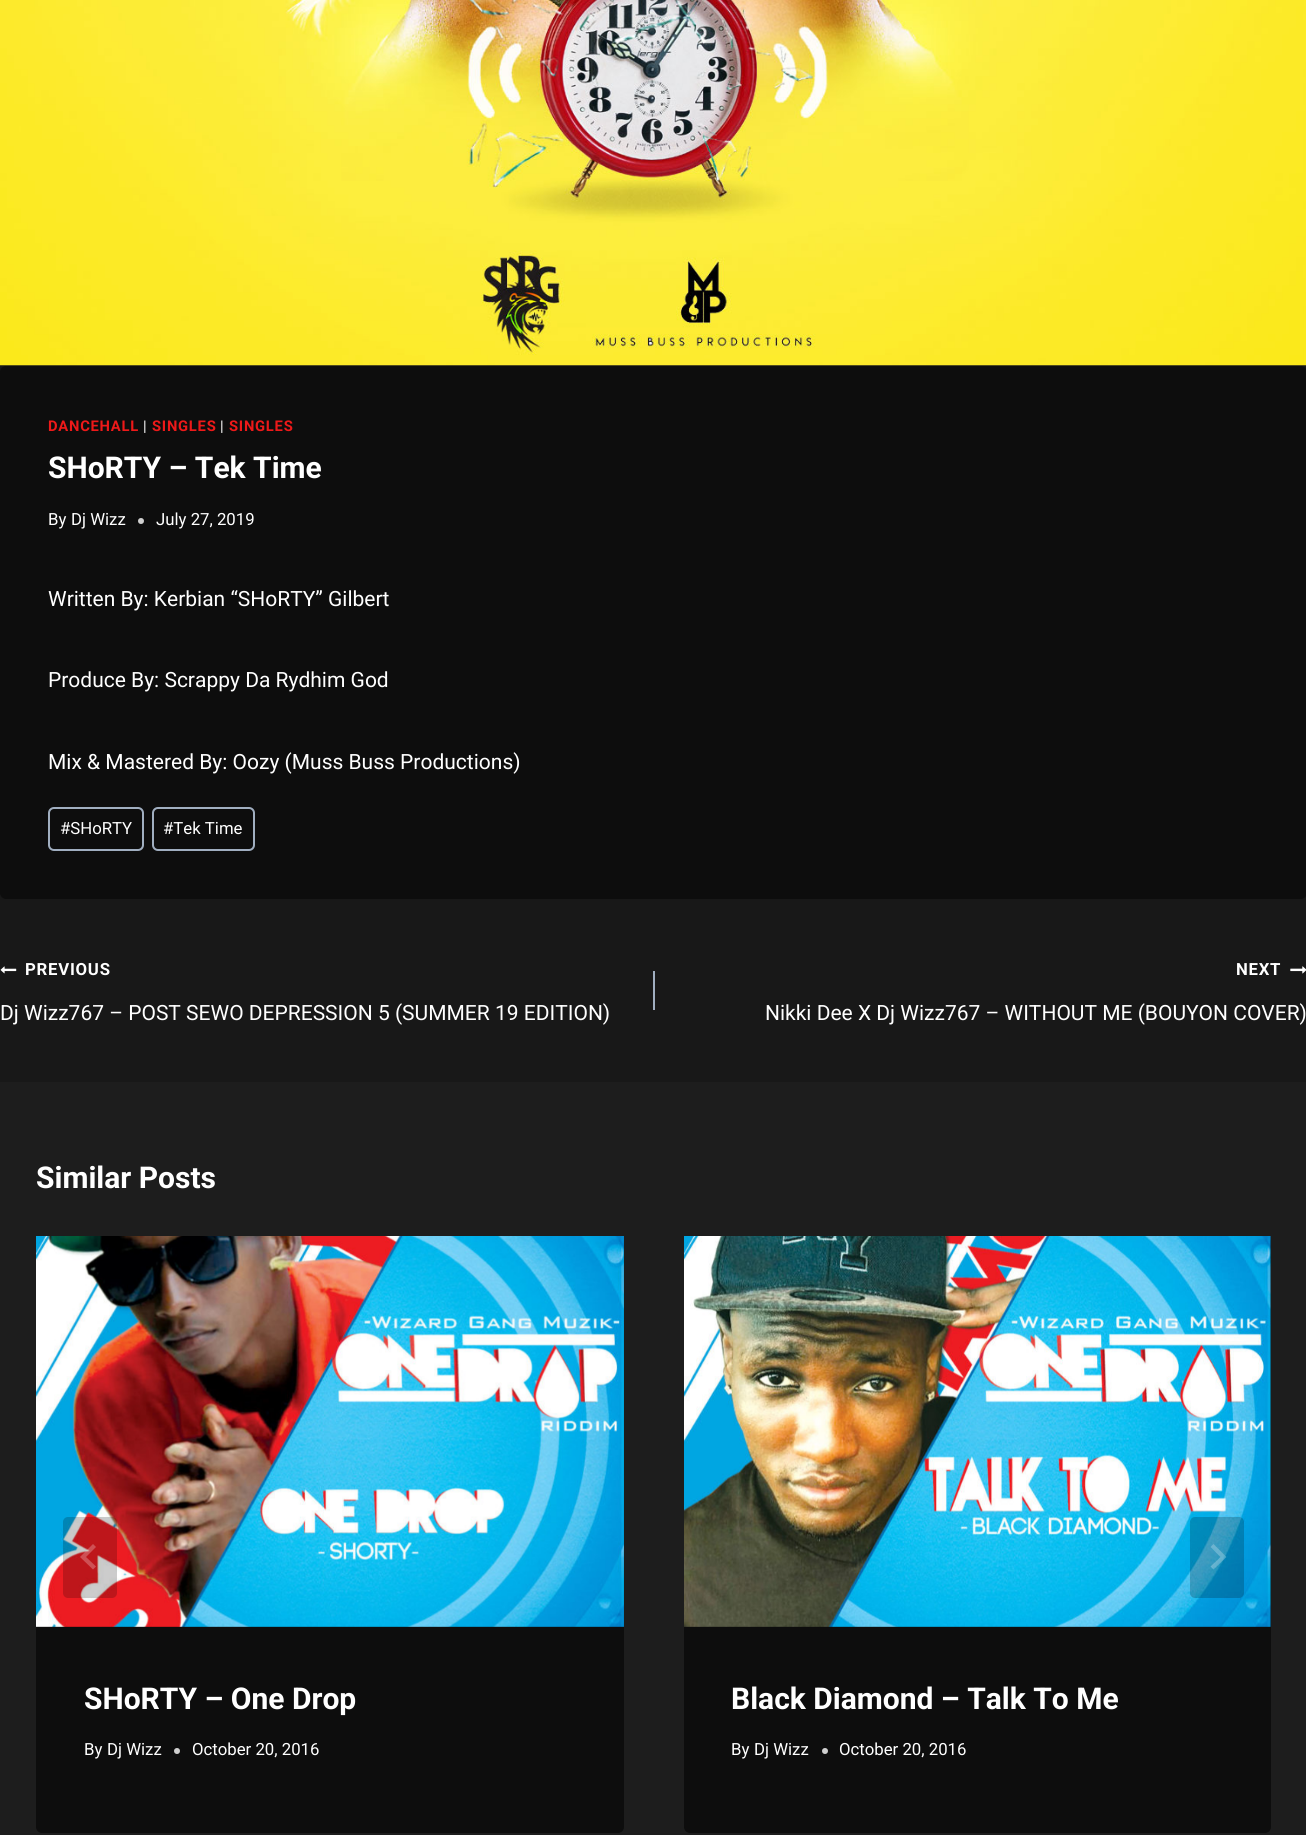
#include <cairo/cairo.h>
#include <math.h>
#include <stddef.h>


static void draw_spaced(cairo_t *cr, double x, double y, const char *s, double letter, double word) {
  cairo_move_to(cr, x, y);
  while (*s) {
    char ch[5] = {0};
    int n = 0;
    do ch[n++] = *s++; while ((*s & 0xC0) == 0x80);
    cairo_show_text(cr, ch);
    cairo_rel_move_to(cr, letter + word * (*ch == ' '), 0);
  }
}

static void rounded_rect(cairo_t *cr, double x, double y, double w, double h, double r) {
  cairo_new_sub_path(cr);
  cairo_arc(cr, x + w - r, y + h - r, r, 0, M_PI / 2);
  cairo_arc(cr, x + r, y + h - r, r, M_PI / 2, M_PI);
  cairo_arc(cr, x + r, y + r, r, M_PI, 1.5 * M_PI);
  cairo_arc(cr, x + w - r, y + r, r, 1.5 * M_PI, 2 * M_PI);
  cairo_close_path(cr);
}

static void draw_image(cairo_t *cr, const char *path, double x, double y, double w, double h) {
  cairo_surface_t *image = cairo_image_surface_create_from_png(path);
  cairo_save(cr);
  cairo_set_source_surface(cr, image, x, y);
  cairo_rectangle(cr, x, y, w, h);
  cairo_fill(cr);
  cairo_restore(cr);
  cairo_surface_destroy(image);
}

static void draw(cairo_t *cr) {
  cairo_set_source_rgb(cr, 24 / 255.0, 24 / 255.0, 24 / 255.0);
  cairo_paint(cr);
  draw_image(cr, "images/1.png", 0, 0, 1306, 366);
  cairo_set_source_rgb(cr, 13 / 255.0, 13 / 255.0, 13 / 255.0);
  rounded_rect(cr, 0, 366, 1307, 533, 6);
  cairo_fill(cr);
  cairo_set_source_rgb(cr, 207 / 255.0, 207 / 255.0, 207 / 255.0);
  cairo_arc(cr, 141, 521, 3, 0, 2 * M_PI);
  cairo_fill(cr);
  rounded_rect(cr, 49, 808, 94, 42, 5);
  cairo_set_source_rgb(cr, 160 / 255.0, 174 / 255.0, 192 / 255.0);
  cairo_stroke(cr);
  rounded_rect(cr, 153, 808, 101, 42, 5);
  cairo_stroke(cr);
  draw_image(cr, "images/2.png", 0, 966, 17, 8);
  cairo_rectangle(cr, 653, 971, 2, 39);
  cairo_fill(cr);
  draw_image(cr, "images/3.png", 1290, 966, 16, 8);
  cairo_set_source_rgb(cr, 29 / 255.0, 29 / 255.0, 29 / 255.0);
  cairo_rectangle(cr, 0, 1082, 1306, 753);
  cairo_fill(cr);
  cairo_set_source_rgb(cr, 13 / 255.0, 13 / 255.0, 13 / 255.0);
  rounded_rect(cr, 36, 1236, 588, 597, 6);
  cairo_fill(cr);
  draw_image(cr, "images/4.png", 36, 1236, 588, 391);
  cairo_set_source_rgba(cr, 0, 0, 0, 0.2);
  rounded_rect(cr, 63, 1517, 54, 81, 5);
  cairo_fill(cr);
  cairo_set_source_rgba(cr, 1, 1, 1, 0.25);
  cairo_new_path(cr);
  cairo_move_to(cr, 93, 1544);
  cairo_line_to(cr, 96, 1547);
  cairo_line_to(cr, 86, 1557);
  cairo_line_to(cr, 96, 1566.5);
  cairo_line_to(cr, 93, 1569.5);
  cairo_line_to(cr, 80, 1557);
  cairo_close_path(cr);
  cairo_fill(cr);
  cairo_set_source_rgb(cr, 13 / 255.0, 13 / 255.0, 13 / 255.0);
  rounded_rect(cr, 684, 1236, 587, 597, 6);
  cairo_fill(cr);
  draw_image(cr, "images/5.png", 684, 1236, 587, 391);
  cairo_set_source_rgba(cr, 0, 0, 0, 0.2);
  rounded_rect(cr, 1190, 1517, 54, 81, 5);
  cairo_fill(cr);
  cairo_set_source_rgba(cr, 1, 1, 1, 0.25);
  cairo_new_path(cr);
  cairo_move_to(cr, 1213.5, 1544);
  cairo_line_to(cr, 1210.5, 1547);
  cairo_line_to(cr, 1220.5, 1557);
  cairo_line_to(cr, 1210.5, 1566.5);
  cairo_line_to(cr, 1213.5, 1569.5);
  cairo_line_to(cr, 1226.5, 1557);
  cairo_close_path(cr);
  cairo_fill(cr);
  cairo_set_source_rgb(cr, 207 / 255.0, 207 / 255.0, 207 / 255.0);
  cairo_arc(cr, 177, 1751, 3, 0, 2 * M_PI);
  cairo_fill(cr);
  cairo_arc(cr, 825, 1751, 3, 0, 2 * M_PI);
  cairo_fill(cr);
  cairo_select_font_face(cr, "Roboto", CAIRO_FONT_SLANT_NORMAL, CAIRO_FONT_WEIGHT_BOLD);
  cairo_set_font_size(cr, 14.75);
  cairo_set_source_rgb(cr, 238 / 255.0, 25 / 255.0, 25 / 255.0);
  draw_spaced(cr, 48, 431, "DANCEHALL", 0.75, 0);
  cairo_select_font_face(cr, "Roboto", CAIRO_FONT_SLANT_NORMAL, CAIRO_FONT_WEIGHT_NORMAL);
  cairo_set_source_rgb(cr, 1, 1, 1);
  draw_spaced(cr, 143, 431, "|", 0.75, 0);
  cairo_select_font_face(cr, "Roboto", CAIRO_FONT_SLANT_NORMAL, CAIRO_FONT_WEIGHT_BOLD);
  cairo_set_source_rgb(cr, 238 / 255.0, 25 / 255.0, 25 / 255.0);
  draw_spaced(cr, 152, 431, "SINGLES", 0.75, 0);
  cairo_select_font_face(cr, "Roboto", CAIRO_FONT_SLANT_NORMAL, CAIRO_FONT_WEIGHT_NORMAL);
  cairo_set_source_rgb(cr, 1, 1, 1);
  draw_spaced(cr, 220, 431, "|", 0.75, 0);
  cairo_select_font_face(cr, "Roboto", CAIRO_FONT_SLANT_NORMAL, CAIRO_FONT_WEIGHT_BOLD);
  cairo_set_source_rgb(cr, 238 / 255.0, 25 / 255.0, 25 / 255.0);
  draw_spaced(cr, 229, 431, "SINGLES", 0.75, 0);
  cairo_set_font_size(cr, 30);
  cairo_set_source_rgb(cr, 1, 1, 1);
  cairo_move_to(cr, 48, 478);
  cairo_show_text(cr, "SHoRTY – Tek Time");
  cairo_select_font_face(cr, "Roboto", CAIRO_FONT_SLANT_NORMAL, CAIRO_FONT_WEIGHT_NORMAL);
  cairo_set_font_size(cr, 16.75);
  cairo_move_to(cr, 48, 525);
  cairo_show_text(cr, "By");
  cairo_move_to(cr, 71, 525);
  cairo_show_text(cr, "Dj Wizz");
  cairo_move_to(cr, 156, 525);
  cairo_show_text(cr, "July 27, 2019");
  cairo_set_font_size(cr, 21);
  cairo_move_to(cr, 48, 606);
  cairo_show_text(cr, "Written By: Kerbian “SHoRTY” Gilbert");
  cairo_move_to(cr, 48, 687);
  cairo_show_text(cr, "Produce By: Scrappy Da Rydhim God");
  cairo_move_to(cr, 48, 769);
  cairo_show_text(cr, "Mix & Mastered By: Oozy (Muss Buss Productions)");
  cairo_set_font_size(cr, 16.75);
  cairo_move_to(cr, 60, 834);
  cairo_show_text(cr, "#SHoRTY");
  cairo_move_to(cr, 163, 834);
  cairo_show_text(cr, "#Tek Time");
  cairo_select_font_face(cr, "Roboto", CAIRO_FONT_SLANT_NORMAL, CAIRO_FONT_WEIGHT_BOLD);
  draw_spaced(cr, 25, 975, "PREVIOUS", 0.75, 0);
  cairo_select_font_face(cr, "Roboto", CAIRO_FONT_SLANT_NORMAL, CAIRO_FONT_WEIGHT_NORMAL);
  cairo_set_font_size(cr, 21);
  cairo_move_to(cr, 0, 1020);
  cairo_show_text(cr, "Dj Wizz767 – POST SEWO DEPRESSION 5 (SUMMER 19 EDITION)");
  cairo_select_font_face(cr, "Roboto", CAIRO_FONT_SLANT_NORMAL, CAIRO_FONT_WEIGHT_BOLD);
  cairo_set_font_size(cr, 16.75);
  draw_spaced(cr, 1236, 975, "NEXT", 0.75, 0);
  cairo_select_font_face(cr, "Roboto", CAIRO_FONT_SLANT_NORMAL, CAIRO_FONT_WEIGHT_NORMAL);
  cairo_set_font_size(cr, 21);
  cairo_move_to(cr, 765, 1020);
  cairo_show_text(cr, "Nikki Dee X Dj Wizz767 – WITHOUT ME (BOUYON COVER)");
  cairo_select_font_face(cr, "Roboto", CAIRO_FONT_SLANT_NORMAL, CAIRO_FONT_WEIGHT_BOLD);
  cairo_set_font_size(cr, 30);
  cairo_move_to(cr, 36, 1188);
  cairo_show_text(cr, "Similar Posts");
  cairo_move_to(cr, 84, 1709);
  cairo_show_text(cr, "SHoRTY – One Drop");
  cairo_select_font_face(cr, "Roboto", CAIRO_FONT_SLANT_NORMAL, CAIRO_FONT_WEIGHT_NORMAL);
  cairo_set_font_size(cr, 16.75);
  cairo_move_to(cr, 84, 1755);
  cairo_show_text(cr, "By");
  cairo_move_to(cr, 107, 1755);
  cairo_show_text(cr, "Dj Wizz");
  cairo_move_to(cr, 192, 1755);
  cairo_show_text(cr, "October 20, 2016");
  cairo_select_font_face(cr, "Roboto", CAIRO_FONT_SLANT_NORMAL, CAIRO_FONT_WEIGHT_BOLD);
  cairo_set_font_size(cr, 30);
  cairo_move_to(cr, 731, 1709);
  cairo_show_text(cr, "Black Diamond – Talk To Me");
  cairo_select_font_face(cr, "Roboto", CAIRO_FONT_SLANT_NORMAL, CAIRO_FONT_WEIGHT_NORMAL);
  cairo_set_font_size(cr, 16.75);
  cairo_move_to(cr, 731, 1755);
  cairo_show_text(cr, "By");
  cairo_move_to(cr, 754, 1755);
  cairo_show_text(cr, "Dj Wizz");
  cairo_move_to(cr, 839, 1755);
  cairo_show_text(cr, "October 20, 2016");
}

int main(void) {
  cairo_surface_t *surface = cairo_image_surface_create(CAIRO_FORMAT_RGB24, 1306, 1835);
  cairo_t *cr = cairo_create(surface);
  cairo_font_options_t *options = cairo_font_options_create();
  cairo_font_options_set_hint_metrics(options, CAIRO_HINT_METRICS_OFF);
  cairo_font_options_set_hint_style(options, CAIRO_HINT_STYLE_NONE);
  cairo_set_font_options(cr, options);
  cairo_set_miter_limit(cr, 4);
  draw(cr);
  cairo_surface_write_to_png(surface, "out.png");
  cairo_font_options_destroy(options);
  cairo_destroy(cr);
  cairo_surface_destroy(surface);
  return 0;
}
